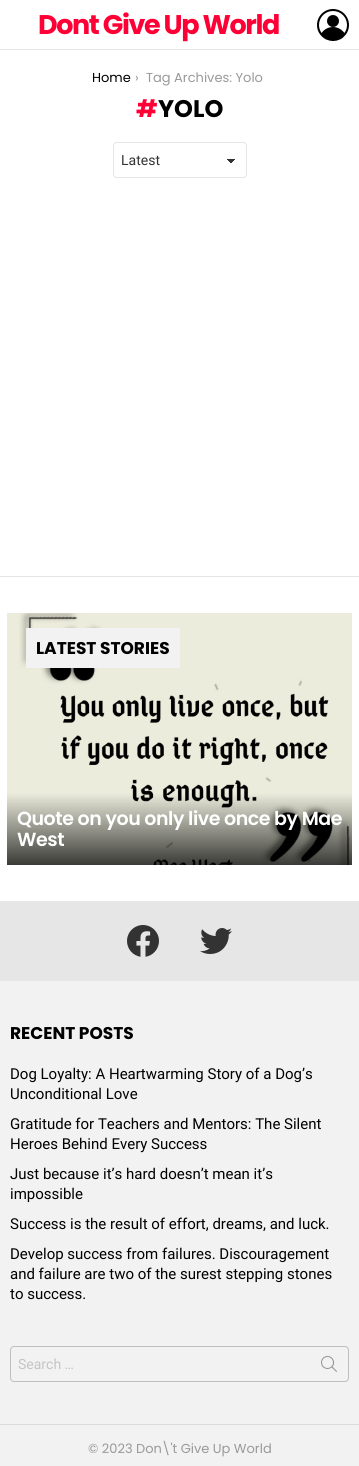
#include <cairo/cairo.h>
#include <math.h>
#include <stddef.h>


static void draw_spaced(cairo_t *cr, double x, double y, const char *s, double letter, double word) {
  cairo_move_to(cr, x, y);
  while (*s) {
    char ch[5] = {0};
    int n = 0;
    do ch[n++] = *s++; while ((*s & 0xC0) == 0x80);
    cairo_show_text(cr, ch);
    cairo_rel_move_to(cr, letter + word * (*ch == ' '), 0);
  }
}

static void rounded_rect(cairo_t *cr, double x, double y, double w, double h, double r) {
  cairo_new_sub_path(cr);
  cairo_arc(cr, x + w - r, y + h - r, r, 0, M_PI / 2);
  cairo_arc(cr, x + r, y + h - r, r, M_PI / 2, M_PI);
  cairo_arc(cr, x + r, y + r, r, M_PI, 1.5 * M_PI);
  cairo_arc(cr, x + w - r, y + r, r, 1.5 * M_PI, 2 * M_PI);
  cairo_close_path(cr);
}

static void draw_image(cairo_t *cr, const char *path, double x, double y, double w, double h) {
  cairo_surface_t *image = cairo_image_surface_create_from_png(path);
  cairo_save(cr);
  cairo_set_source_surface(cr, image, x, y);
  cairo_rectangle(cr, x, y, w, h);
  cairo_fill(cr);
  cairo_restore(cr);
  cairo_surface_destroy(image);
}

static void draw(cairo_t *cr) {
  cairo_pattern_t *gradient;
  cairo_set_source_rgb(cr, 230 / 255.0, 230 / 255.0, 230 / 255.0);
  cairo_paint(cr);
  cairo_set_source_rgb(cr, 1, 1, 1);
  cairo_rectangle(cr, 0, 0, 359, 49);
  cairo_fill(cr);
  draw_image(cr, "images/1.png", 317, 9, 32, 32);
  cairo_rectangle(cr, 0, 50, 359, 526);
  cairo_fill(cr);
  gradient = cairo_pattern_create_linear(231, 159, 236, 163);
  cairo_pattern_add_color_stop_rgba(gradient, 0.5, 51 / 255.0, 51 / 255.0, 51 / 255.0, 1);
  cairo_pattern_add_color_stop_rgba(gradient, 0.5, 1, 1, 1, 1);
  cairo_set_source(cr, gradient);
  cairo_pattern_destroy(gradient);
  cairo_rectangle(cr, 231, 159, 5, 4);
  cairo_fill(cr);
  gradient = cairo_pattern_create_linear(226, 163, 231, 159);
  cairo_pattern_add_color_stop_rgba(gradient, 0.5, 1, 1, 1, 1);
  cairo_pattern_add_color_stop_rgba(gradient, 0.5, 51 / 255.0, 51 / 255.0, 51 / 255.0, 1);
  cairo_set_source(cr, gradient);
  cairo_pattern_destroy(gradient);
  cairo_rectangle(cr, 226, 159, 5, 4);
  cairo_fill(cr);
  rounded_rect(cr, 113.5, 142.5, 133, 35, 3.5);
  cairo_set_source_rgb(cr, 230 / 255.0, 230 / 255.0, 230 / 255.0);
  cairo_set_line_width(cr, 1);
  cairo_stroke(cr);
  cairo_set_source_rgb(cr, 1, 1, 1);
  cairo_rectangle(cr, 0, 577, 359, 324);
  cairo_fill(cr);
  draw_image(cr, "images/2.png", 7, 613, 345, 252);
  cairo_set_source_rgb(cr, 242 / 255.0, 242 / 255.0, 242 / 255.0);
  cairo_rectangle(cr, 26, 628, 154, 40);
  cairo_fill(cr);
  draw_image(cr, "images/3.png", 127, 925, 32, 32);
  draw_image(cr, "images/4.png", 200, 928, 32, 26);
  cairo_rectangle(cr, 0, 981, 359, 443);
  cairo_fill(cr);
  rounded_rect(cr, 10.5, 1346.5, 338, 35, 3.5);
  cairo_set_source_rgb(cr, 191 / 255.0, 191 / 255.0, 191 / 255.0);
  cairo_stroke(cr);
  draw_image(cr, "images/5.png", 321, 1356, 16, 16);
  cairo_set_source_rgb(cr, 219 / 255.0, 219 / 255.0, 219 / 255.0);
  cairo_rectangle(cr, 0, 1424, 359, 1);
  cairo_fill(cr);
  cairo_set_source_rgb(cr, 242 / 255.0, 242 / 255.0, 242 / 255.0);
  cairo_rectangle(cr, 0, 1425, 359, 41);
  cairo_fill(cr);
  cairo_select_font_face(cr, "Poppins", CAIRO_FONT_SLANT_NORMAL, CAIRO_FONT_WEIGHT_BOLD);
  cairo_set_font_size(cr, 27);
  cairo_set_source_rgb(cr, 1, 0, 54 / 255.0);
  draw_spaced(cr, 38, 34, "Dont Give Up World", -1.4, 0);
  cairo_select_font_face(cr, "Poppins", CAIRO_FONT_SLANT_NORMAL, CAIRO_FONT_WEIGHT_NORMAL);
  cairo_set_font_size(cr, 13);
  cairo_set_source_rgb(cr, 0, 0, 0);
  cairo_move_to(cr, 92, 82);
  cairo_show_text(cr, "Home");
  cairo_set_source_rgb(cr, 153 / 255.0, 153 / 255.0, 153 / 255.0);
  cairo_move_to(cr, 135, 82);
  cairo_show_text(cr, "›");
  cairo_move_to(cr, 146, 82);
  cairo_show_text(cr, "Tag Archives: Yolo");
  cairo_select_font_face(cr, "Poppins", CAIRO_FONT_SLANT_NORMAL, CAIRO_FONT_WEIGHT_BOLD);
  cairo_set_font_size(cr, 24);
  cairo_set_source_rgb(cr, 1, 0, 54 / 255.0);
  cairo_move_to(cr, 136, 117);
  cairo_show_text(cr, "#");
  cairo_set_source_rgb(cr, 0, 0, 0);
  cairo_move_to(cr, 158, 117);
  cairo_show_text(cr, "YOLO");
  cairo_select_font_face(cr, "Roboto", CAIRO_FONT_SLANT_NORMAL, CAIRO_FONT_WEIGHT_NORMAL);
  cairo_set_font_size(cr, 14);
  cairo_set_source_rgb(cr, 51 / 255.0, 51 / 255.0, 51 / 255.0);
  cairo_move_to(cr, 121, 165);
  cairo_show_text(cr, "Latest");
  cairo_select_font_face(cr, "Poppins", CAIRO_FONT_SLANT_NORMAL, CAIRO_FONT_WEIGHT_BOLD);
  cairo_set_font_size(cr, 17);
  cairo_set_source_rgb(cr, 0, 0, 0);
  cairo_move_to(cr, 36, 654);
  cairo_show_text(cr, "LATEST STORIES");
  cairo_select_font_face(cr, "Poppins SemiBold", CAIRO_FONT_SLANT_NORMAL, CAIRO_FONT_WEIGHT_NORMAL);
  cairo_set_font_size(cr, 19);
  cairo_set_source_rgb(cr, 1, 1, 1);
  draw_spaced(cr, 17, 825, "Quote on you only live once by Mae", -0.45, 0);
  draw_spaced(cr, 17, 846, "West", -0.45, 0);
  cairo_select_font_face(cr, "Poppins", CAIRO_FONT_SLANT_NORMAL, CAIRO_FONT_WEIGHT_BOLD);
  cairo_set_font_size(cr, 17);
  cairo_set_source_rgb(cr, 0, 0, 0);
  cairo_move_to(cr, 10, 1039);
  cairo_show_text(cr, "RECENT POSTS");
  cairo_select_font_face(cr, "Roboto", CAIRO_FONT_SLANT_NORMAL, CAIRO_FONT_WEIGHT_NORMAL);
  cairo_set_font_size(cr, 15);
  cairo_move_to(cr, 10, 1079);
  cairo_show_text(cr, "Dog Loyalty: A Heartwarming Story of a Dog’s");
  cairo_move_to(cr, 10, 1099);
  cairo_show_text(cr, "Unconditional Love");
  cairo_move_to(cr, 10, 1129);
  cairo_show_text(cr, "Gratitude for Teachers and Mentors: The Silent");
  cairo_move_to(cr, 10, 1149);
  cairo_show_text(cr, "Heroes Behind Every Success");
  cairo_move_to(cr, 10, 1179);
  cairo_show_text(cr, "Just because it’s hard doesn’t mean it’s");
  cairo_move_to(cr, 10, 1199);
  cairo_show_text(cr, "impossible");
  cairo_move_to(cr, 10, 1229);
  cairo_show_text(cr, "Success is the result of effort, dreams, and luck.");
  cairo_move_to(cr, 10, 1259);
  cairo_show_text(cr, "Develop success from failures. Discouragement");
  cairo_move_to(cr, 10, 1279);
  cairo_show_text(cr, "and failure are two of the surest stepping stones");
  cairo_move_to(cr, 10, 1299);
  cairo_show_text(cr, "to success.");
  cairo_set_font_size(cr, 14);
  cairo_set_source_rgb(cr, 196 / 255.0, 196 / 255.0, 196 / 255.0);
  cairo_move_to(cr, 18, 1369);
  cairo_show_text(cr, "Search …");
  cairo_select_font_face(cr, "Poppins", CAIRO_FONT_SLANT_NORMAL, CAIRO_FONT_WEIGHT_NORMAL);
  cairo_set_font_size(cr, 13);
  cairo_set_source_rgb(cr, 153 / 255.0, 153 / 255.0, 153 / 255.0);
  cairo_move_to(cr, 88, 1453);
  cairo_show_text(cr, "© 2023 Don\\'t Give Up World");
}

int main(void) {
  cairo_surface_t *surface = cairo_image_surface_create(CAIRO_FORMAT_RGB24, 359, 1466);
  cairo_t *cr = cairo_create(surface);
  cairo_font_options_t *options = cairo_font_options_create();
  cairo_font_options_set_hint_metrics(options, CAIRO_HINT_METRICS_OFF);
  cairo_font_options_set_hint_style(options, CAIRO_HINT_STYLE_NONE);
  cairo_set_font_options(cr, options);
  cairo_set_miter_limit(cr, 4);
  draw(cr);
  cairo_surface_write_to_png(surface, "out.png");
  cairo_font_options_destroy(options);
  cairo_destroy(cr);
  cairo_surface_destroy(surface);
  return 0;
}
